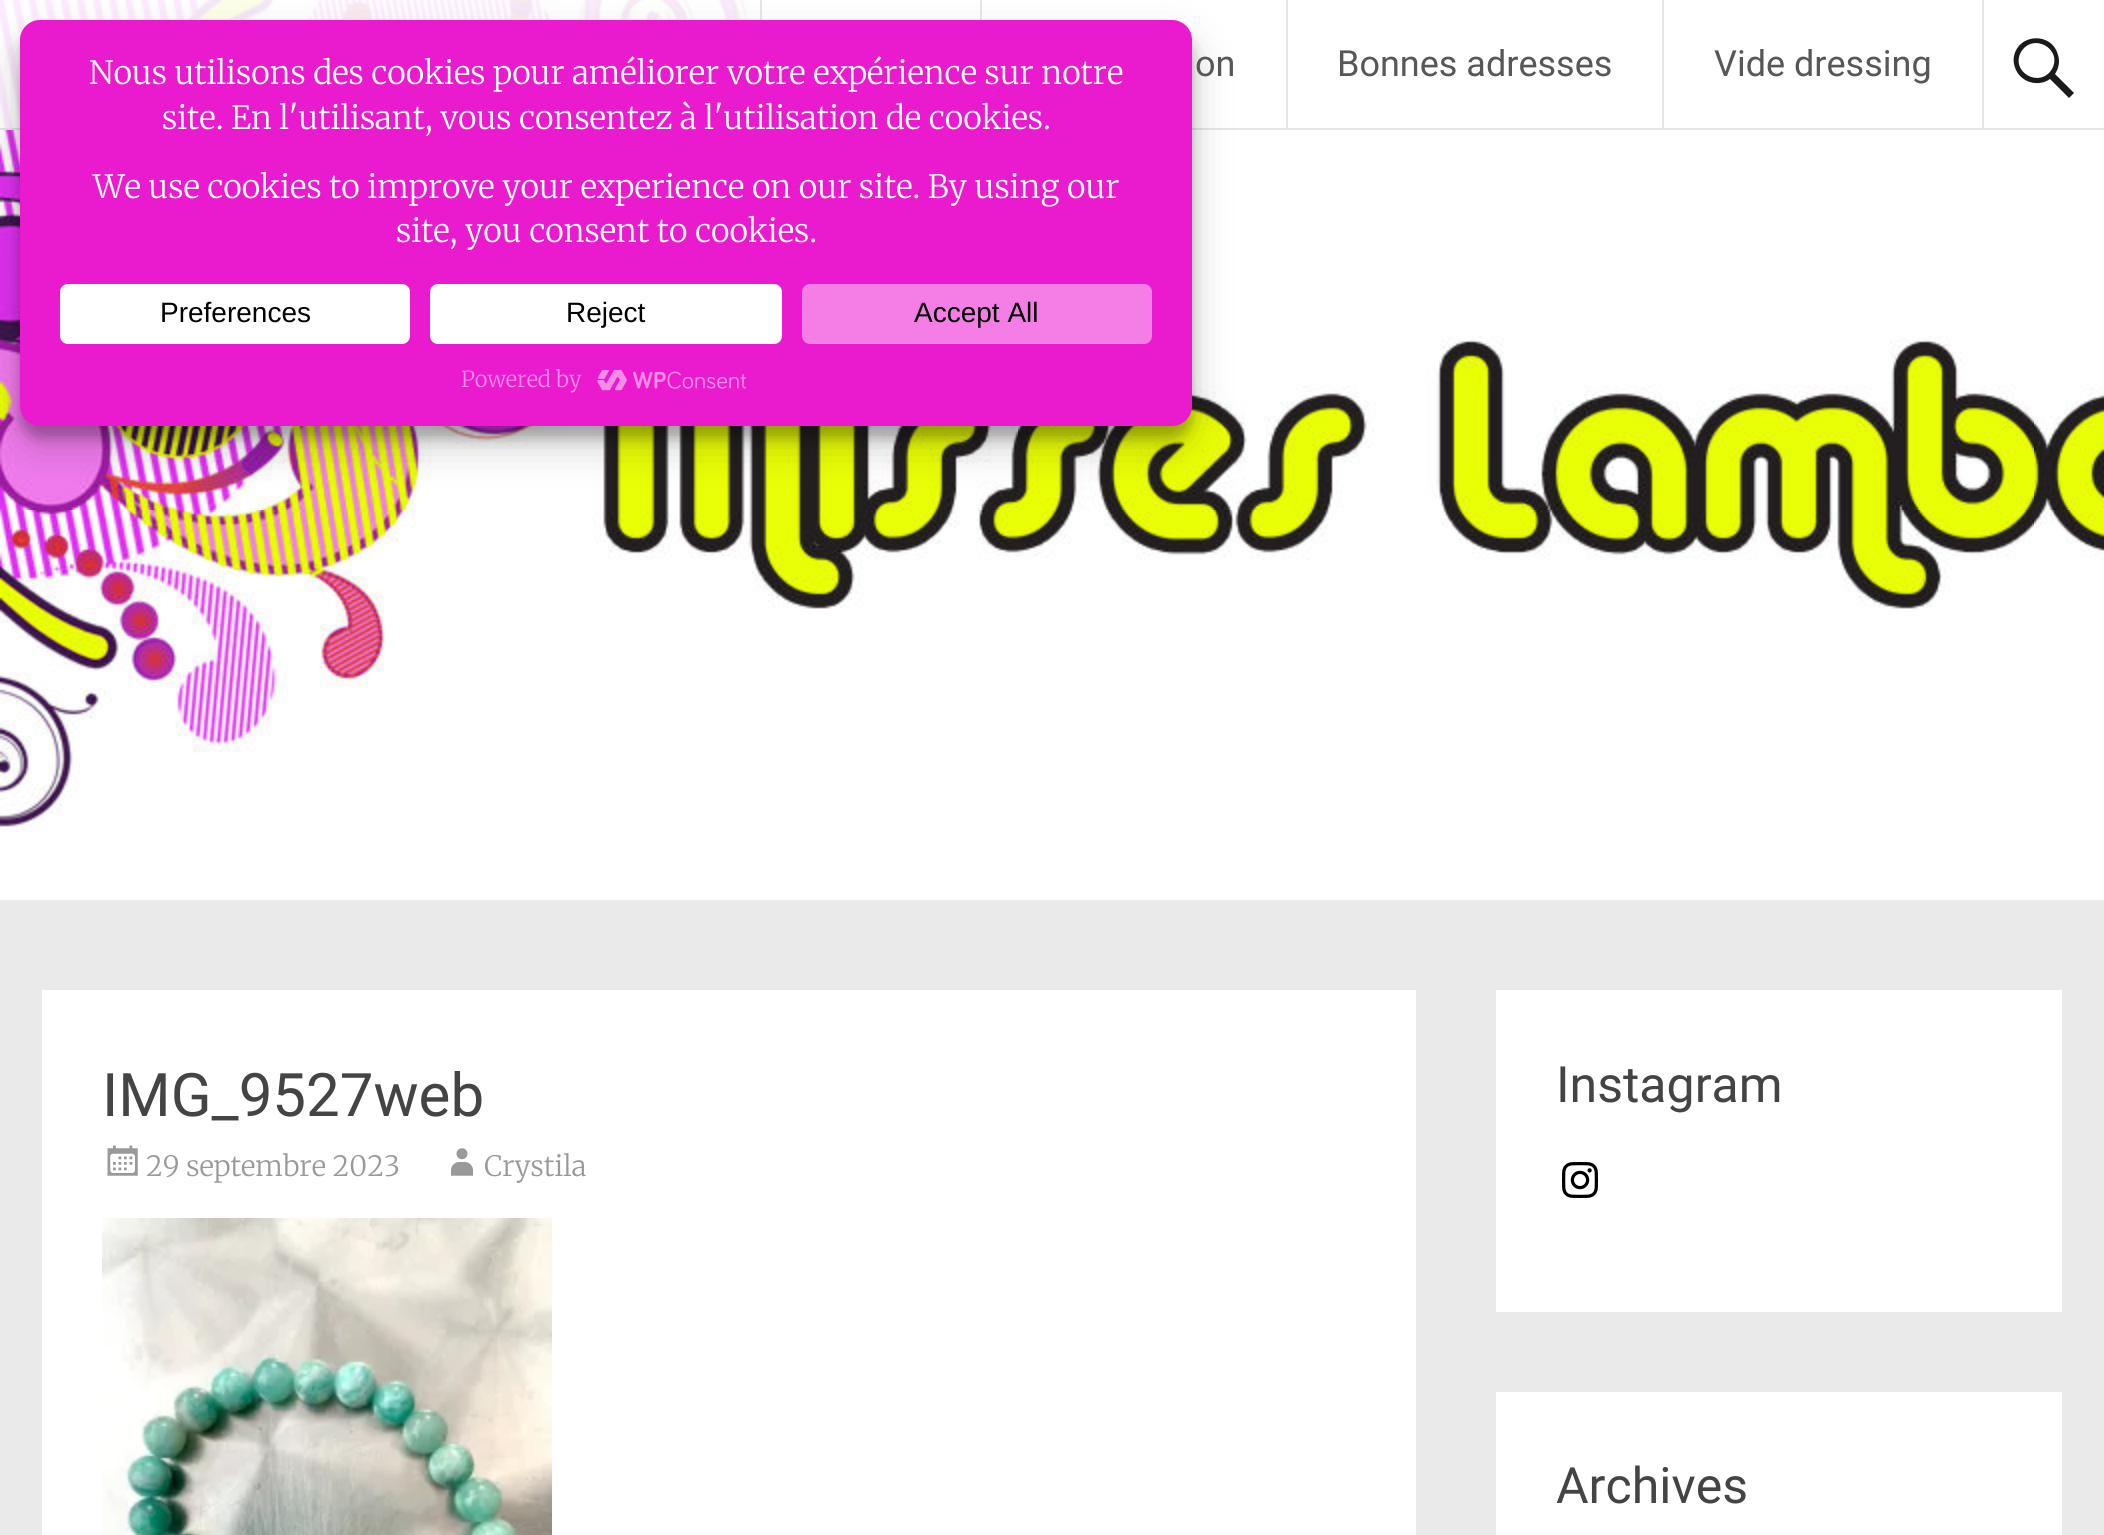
#include <cairo/cairo.h>
#include <math.h>
#include <stddef.h>


static void rounded_rect(cairo_t *cr, double x, double y, double w, double h, double r) {
  cairo_new_sub_path(cr);
  cairo_arc(cr, x + w - r, y + h - r, r, 0, M_PI / 2);
  cairo_arc(cr, x + r, y + h - r, r, M_PI / 2, M_PI);
  cairo_arc(cr, x + r, y + r, r, M_PI, 1.5 * M_PI);
  cairo_arc(cr, x + w - r, y + r, r, 1.5 * M_PI, 2 * M_PI);
  cairo_close_path(cr);
}

static void draw_shadow(cairo_t *cr, double x, double y, double w, double h, double r, double blur, double alpha) {
  cairo_push_group_with_content(cr, CAIRO_CONTENT_ALPHA);
  cairo_set_operator(cr, CAIRO_OPERATOR_SOURCE);
  for (int i = 15; i >= -15 && fmin(w, h) + blur * i / 3 > 0; i -= 2) {
    double e = blur * i / 6;
    cairo_set_source_rgba(cr, 0, 0, 0, alpha * erfc((i - 1) / 8.5) / 2);
    rounded_rect(cr, x - e, y - e, w + 2 * e, h + 2 * e, fmax(0, fmin(r + e + blur * .6, fmin(w, h) / 2 + e)));
    cairo_fill(cr);
  }
  cairo_pattern_t *soft = cairo_pop_group(cr);
  cairo_mask(cr, soft);
  cairo_pattern_destroy(soft);
}

static void draw_image(cairo_t *cr, const char *path, double x, double y, double w, double h) {
  cairo_surface_t *image = cairo_image_surface_create_from_png(path);
  cairo_save(cr);
  cairo_set_source_surface(cr, image, x, y);
  cairo_rectangle(cr, x, y, w, h);
  cairo_fill(cr);
  cairo_restore(cr);
  cairo_surface_destroy(image);
}

static void draw(cairo_t *cr) {
  cairo_set_source_rgb(cr, 1, 1, 1);
  cairo_paint(cr);
  draw_image(cr, "images/1.png", 0, 0, 2104, 832);
  cairo_set_source_rgba(cr, 1, 1, 1, 0.9);
  cairo_rectangle(cr, 0, 0, 753, 130);
  cairo_fill(cr);
  cairo_set_source_rgba(cr, 225 / 255.0, 228 / 255.0, 230 / 255.0, 0.9);
  cairo_rectangle(cr, 0, 128, 2104, 2);
  cairo_fill(cr);
  cairo_set_source_rgb(cr, 228 / 255.0, 231 / 255.0, 233 / 255.0);
  cairo_rectangle(cr, 760, 0, 2, 20);
  cairo_fill(cr);
  cairo_rectangle(cr, 980, 0, 2, 20);
  cairo_fill(cr);
  cairo_rectangle(cr, 1286, 0, 2, 128);
  cairo_fill(cr);
  cairo_rectangle(cr, 1662, 0, 2, 128);
  cairo_fill(cr);
  cairo_rectangle(cr, 1982, 0, 2, 128);
  cairo_fill(cr);
  cairo_set_source_rgb(cr, 26 / 255.0, 26 / 255.0, 26 / 255.0);
  cairo_new_path(cr);
  cairo_move_to(cr, 2074, 93);
  cairo_line_to(cr, 2069, 98);
  cairo_line_to(cr, 2050, 79);
  cairo_curve_to(cr, 2039, 87, 2022, 83, 2016, 70);
  cairo_curve_to(cr, 2014, 66, 2013, 61, 2014, 56);
  cairo_curve_to(cr, 2019, 33, 2052, 32, 2058, 55);
  cairo_curve_to(cr, 2060, 61, 2059, 68, 2055, 74);
  cairo_close_path(cr);
  cairo_move_to(cr, 2021, 52);
  cairo_curve_to(cr, 2010, 72, 2040, 89, 2052, 69);
  cairo_curve_to(cr, 2063, 49, 2033, 32, 2021, 52);
  cairo_close_path(cr);
  cairo_fill(cr);
  cairo_set_source_rgb(cr, 234 / 255.0, 234 / 255.0, 234 / 255.0);
  cairo_rectangle(cr, 0, 900, 2104, 635);
  cairo_fill(cr);
  cairo_set_source_rgb(cr, 1, 1, 1);
  cairo_rectangle(cr, 42, 990, 1374, 545);
  cairo_fill(cr);
  draw_image(cr, "images/2.png", 107, 1145, 31, 31);
  draw_image(cr, "images/3.png", 451, 1148, 22, 28);
  draw_image(cr, "images/4.png", 102, 1218, 450, 317);
  cairo_rectangle(cr, 1496, 990, 566, 322);
  cairo_fill(cr);
  draw_image(cr, "images/5.png", 1562, 1162, 36, 36);
  cairo_rectangle(cr, 1496, 1392, 566, 143);
  cairo_fill(cr);
  cairo_set_source_rgb(cr, 0, 0, 0);
  draw_shadow(cr, 20, 32, 1172, 406, 20, 6, 0.23);
  draw_shadow(cr, 20, 40, 1172, 406, 20, 20, 0.19);
  cairo_set_source_rgb(cr, 234 / 255.0, 27 / 255.0, 207 / 255.0);
  rounded_rect(cr, 20, 20, 1172, 406, 20);
  cairo_fill(cr);
  cairo_set_source_rgb(cr, 1, 1, 1);
  rounded_rect(cr, 60, 284, 350, 60, 8);
  cairo_fill(cr);
  rounded_rect(cr, 430, 284, 352, 60, 8);
  cairo_fill(cr);
  cairo_set_source_rgb(cr, 245 / 255.0, 126 / 255.0, 230 / 255.0);
  rounded_rect(cr, 802, 284, 350, 60, 8);
  cairo_fill(cr);
  draw_image(cr, "images/6.png", 597, 369, 149, 22);
  cairo_select_font_face(cr, "Roboto", CAIRO_FONT_SLANT_NORMAL, CAIRO_FONT_WEIGHT_NORMAL);
  cairo_set_font_size(cr, 36);
  cairo_set_source_rgb(cr, 87 / 255.0, 87 / 255.0, 87 / 255.0);
  cairo_move_to(cr, 1195, 76);
  cairo_show_text(cr, "on");
  cairo_move_to(cr, 1337, 76);
  cairo_show_text(cr, "Bonnes adresses");
  cairo_move_to(cr, 1714, 76);
  cairo_show_text(cr, "Vide dressing");
  cairo_set_font_size(cr, 60);
  cairo_set_source_rgb(cr, 68 / 255.0, 68 / 255.0, 68 / 255.0);
  cairo_move_to(cr, 102, 1116);
  cairo_show_text(cr, "IMG_9527web");
  cairo_select_font_face(cr, "Merriweather Light", CAIRO_FONT_SLANT_NORMAL, CAIRO_FONT_WEIGHT_NORMAL);
  cairo_set_font_size(cr, 28);
  cairo_set_source_rgb(cr, 153 / 255.0, 153 / 255.0, 153 / 255.0);
  cairo_move_to(cr, 146, 1176);
  cairo_show_text(cr, "29 septembre 2023");
  cairo_move_to(cr, 484, 1176);
  cairo_show_text(cr, "Crystila");
  cairo_select_font_face(cr, "Roboto", CAIRO_FONT_SLANT_NORMAL, CAIRO_FONT_WEIGHT_NORMAL);
  cairo_set_font_size(cr, 50);
  cairo_set_source_rgb(cr, 68 / 255.0, 68 / 255.0, 68 / 255.0);
  cairo_move_to(cr, 1556, 1102);
  cairo_show_text(cr, "Instagram");
  cairo_move_to(cr, 1556, 1503);
  cairo_show_text(cr, "Archives");
  cairo_select_font_face(cr, "Merriweather Light", CAIRO_FONT_SLANT_NORMAL, CAIRO_FONT_WEIGHT_NORMAL);
  cairo_set_font_size(cr, 32);
  cairo_set_source_rgb(cr, 1, 1, 1);
  cairo_move_to(cr, 89, 84);
  cairo_show_text(cr, "Nous utilisons des cookies pour améliorer votre expérience sur notre");
  cairo_move_to(cr, 162, 129);
  cairo_show_text(cr, "site. En l'utilisant, vous consentez à l'utilisation de cookies.");
  cairo_move_to(cr, 93, 198);
  cairo_show_text(cr, "We use cookies to improve your experience on our site. By using our");
  cairo_move_to(cr, 396, 242);
  cairo_show_text(cr, "site, you consent to cookies.");
  cairo_select_font_face(cr, "Liberation Sans", CAIRO_FONT_SLANT_NORMAL, CAIRO_FONT_WEIGHT_NORMAL);
  cairo_set_font_size(cr, 28);
  cairo_set_source_rgb(cr, 0, 0, 0);
  cairo_move_to(cr, 160, 322);
  cairo_show_text(cr, "Preferences");
  cairo_move_to(cr, 566, 322);
  cairo_show_text(cr, "Reject");
  cairo_move_to(cr, 914, 322);
  cairo_show_text(cr, "Accept All");
  cairo_select_font_face(cr, "Merriweather Light", CAIRO_FONT_SLANT_NORMAL, CAIRO_FONT_WEIGHT_NORMAL);
  cairo_set_font_size(cr, 22);
  cairo_set_source_rgb(cr, 245 / 255.0, 141 / 255.0, 231 / 255.0);
  cairo_move_to(cr, 461, 387);
  cairo_show_text(cr, "Powered by");
}

int main(void) {
  cairo_surface_t *surface = cairo_image_surface_create(CAIRO_FORMAT_RGB24, 2104, 1535);
  cairo_t *cr = cairo_create(surface);
  cairo_font_options_t *options = cairo_font_options_create();
  cairo_font_options_set_hint_metrics(options, CAIRO_HINT_METRICS_OFF);
  cairo_font_options_set_hint_style(options, CAIRO_HINT_STYLE_NONE);
  cairo_set_font_options(cr, options);
  cairo_set_miter_limit(cr, 4);
  draw(cr);
  cairo_surface_write_to_png(surface, "out.png");
  cairo_font_options_destroy(options);
  cairo_destroy(cr);
  cairo_surface_destroy(surface);
  return 0;
}
